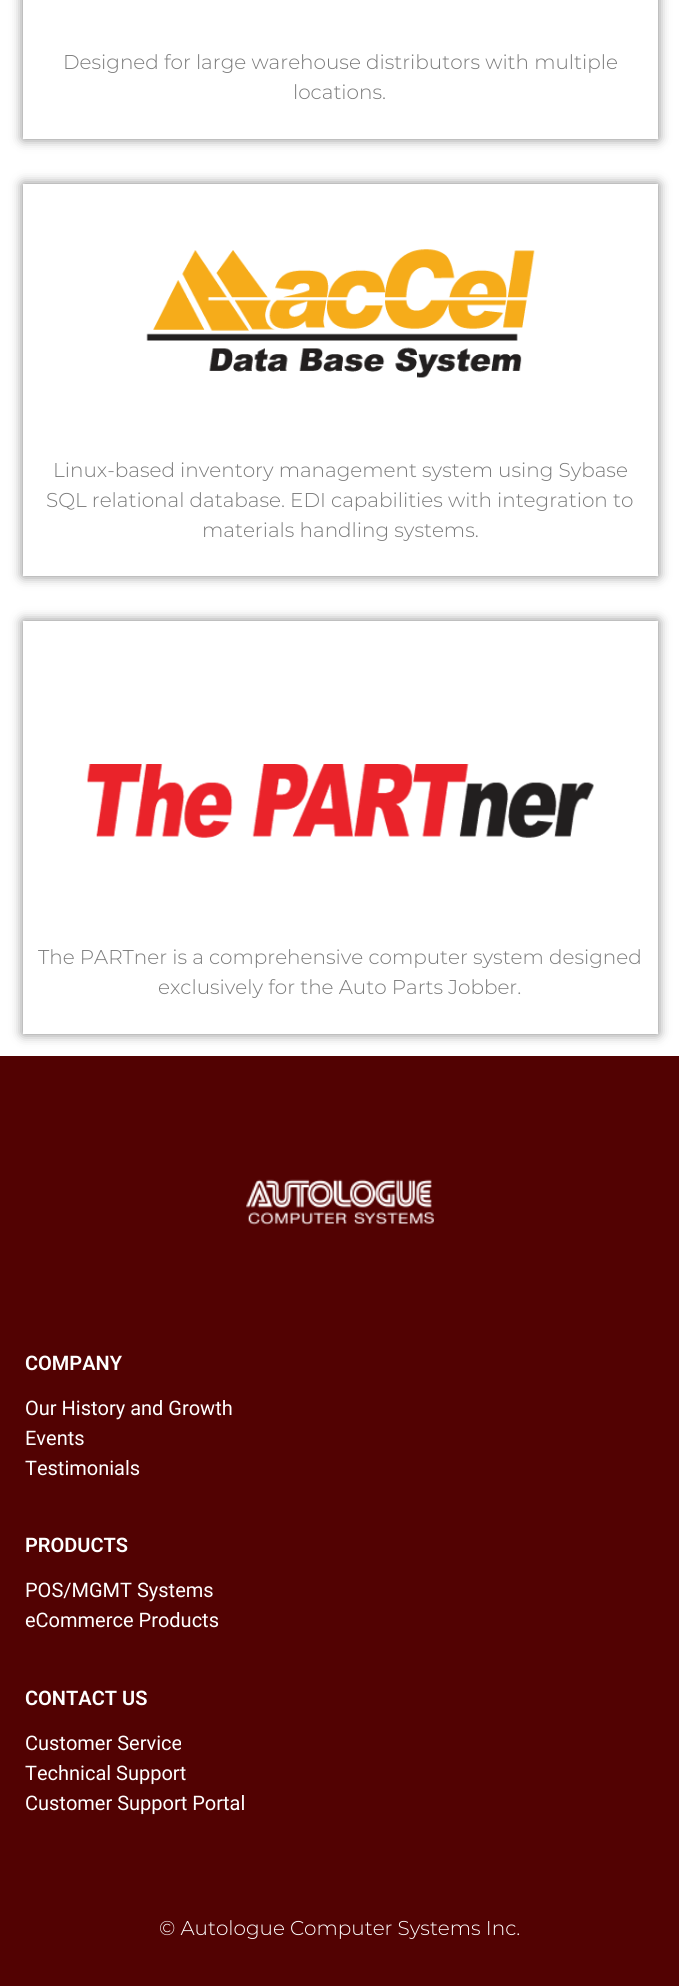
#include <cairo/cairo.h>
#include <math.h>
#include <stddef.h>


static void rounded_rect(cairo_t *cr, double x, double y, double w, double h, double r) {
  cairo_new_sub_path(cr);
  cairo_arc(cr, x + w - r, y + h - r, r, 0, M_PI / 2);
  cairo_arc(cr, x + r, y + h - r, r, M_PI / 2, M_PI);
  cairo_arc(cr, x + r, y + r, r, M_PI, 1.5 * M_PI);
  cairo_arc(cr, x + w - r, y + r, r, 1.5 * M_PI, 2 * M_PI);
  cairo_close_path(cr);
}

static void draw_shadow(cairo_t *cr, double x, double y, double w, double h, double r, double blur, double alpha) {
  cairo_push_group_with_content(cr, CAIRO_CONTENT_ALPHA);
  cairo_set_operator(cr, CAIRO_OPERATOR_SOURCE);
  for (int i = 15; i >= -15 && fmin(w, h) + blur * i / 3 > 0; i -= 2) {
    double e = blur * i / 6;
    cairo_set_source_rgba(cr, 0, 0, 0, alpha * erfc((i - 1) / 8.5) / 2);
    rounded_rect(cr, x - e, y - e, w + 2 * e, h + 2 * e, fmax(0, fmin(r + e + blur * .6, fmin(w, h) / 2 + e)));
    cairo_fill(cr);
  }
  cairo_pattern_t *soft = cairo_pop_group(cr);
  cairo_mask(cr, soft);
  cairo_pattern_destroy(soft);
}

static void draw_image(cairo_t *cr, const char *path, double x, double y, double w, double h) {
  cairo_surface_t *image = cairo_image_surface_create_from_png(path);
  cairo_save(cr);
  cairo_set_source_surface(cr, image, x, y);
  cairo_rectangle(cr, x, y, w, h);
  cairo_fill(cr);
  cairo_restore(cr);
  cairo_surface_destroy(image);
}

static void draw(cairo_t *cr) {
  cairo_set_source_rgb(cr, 1, 1, 1);
  cairo_paint(cr);
  cairo_save(cr);
  cairo_set_fill_rule(cr, CAIRO_FILL_RULE_EVEN_ODD);
  cairo_new_path(cr);
  cairo_move_to(cr, 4, 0);
  cairo_line_to(cr, 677, 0);
  cairo_line_to(cr, 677, 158);
  cairo_line_to(cr, 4, 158);
  cairo_close_path(cr);
  cairo_move_to(cr, 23, -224);
  cairo_line_to(cr, 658, -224);
  cairo_line_to(cr, 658, 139);
  cairo_line_to(cr, 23, 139);
  cairo_close_path(cr);
  cairo_clip(cr);
  cairo_set_source_rgb(cr, 0, 0, 0);
  draw_shadow(cr, 23, -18, 635, 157, 0, 6, 0.5);
  cairo_restore(cr);
  cairo_save(cr);
  cairo_set_fill_rule(cr, CAIRO_FILL_RULE_EVEN_ODD);
  cairo_new_path(cr);
  cairo_move_to(cr, 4, 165);
  cairo_line_to(cr, 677, 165);
  cairo_line_to(cr, 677, 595);
  cairo_line_to(cr, 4, 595);
  cairo_close_path(cr);
  cairo_move_to(cr, 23, 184);
  cairo_line_to(cr, 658, 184);
  cairo_line_to(cr, 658, 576);
  cairo_line_to(cr, 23, 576);
  cairo_close_path(cr);
  cairo_clip(cr);
  cairo_set_source_rgb(cr, 0, 0, 0);
  draw_shadow(cr, 23, 184, 635, 392, 0, 6, 0.5);
  cairo_restore(cr);
  draw_image(cr, "images/1.png", 146, 249, 389, 129);
  cairo_save(cr);
  cairo_set_fill_rule(cr, CAIRO_FILL_RULE_EVEN_ODD);
  cairo_new_path(cr);
  cairo_move_to(cr, 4, 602);
  cairo_line_to(cr, 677, 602);
  cairo_line_to(cr, 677, 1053);
  cairo_line_to(cr, 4, 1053);
  cairo_close_path(cr);
  cairo_move_to(cr, 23, 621);
  cairo_line_to(cr, 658, 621);
  cairo_line_to(cr, 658, 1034);
  cairo_line_to(cr, 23, 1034);
  cairo_close_path(cr);
  cairo_clip(cr);
  cairo_set_source_rgb(cr, 0, 0, 0);
  draw_shadow(cr, 23, 621, 635, 413, 0, 6, 0.5);
  cairo_restore(cr);
  draw_image(cr, "images/2.png", 87, 764, 507, 74);
  cairo_set_source_rgb(cr, 82 / 255.0, 2 / 255.0, 2 / 255.0);
  cairo_rectangle(cr, 0, 1056, 679, 930);
  cairo_fill(cr);
  draw_image(cr, "images/3.png", 246, 1179, 188, 46);
  cairo_select_font_face(cr, "Montserrat Light", CAIRO_FONT_SLANT_NORMAL, CAIRO_FONT_WEIGHT_NORMAL);
  cairo_set_font_size(cr, 20);
  cairo_set_source_rgb(cr, 122 / 255.0, 122 / 255.0, 122 / 255.0);
  cairo_move_to(cr, 63, 69);
  cairo_show_text(cr, "Designed for large warehouse distributors with multiple");
  cairo_move_to(cr, 293, 99);
  cairo_show_text(cr, "locations.");
  cairo_move_to(cr, 53, 477);
  cairo_show_text(cr, "Linux-based inventory management system using Sybase");
  cairo_move_to(cr, 46, 507);
  cairo_show_text(cr, "SQL relational database. EDI capabilities with integration to");
  cairo_move_to(cr, 202, 537);
  cairo_show_text(cr, "materials handling systems.");
  cairo_move_to(cr, 38, 964);
  cairo_show_text(cr, "The PARTner is a comprehensive computer system designed");
  cairo_move_to(cr, 158, 994);
  cairo_show_text(cr, "exclusively for the Auto Parts Jobber.");
  cairo_select_font_face(cr, "Roboto SemiBold", CAIRO_FONT_SLANT_NORMAL, CAIRO_FONT_WEIGHT_NORMAL);
  cairo_set_source_rgb(cr, 1, 1, 1);
  cairo_move_to(cr, 25, 1370);
  cairo_show_text(cr, "COMPANY");
  cairo_select_font_face(cr, "Roboto", CAIRO_FONT_SLANT_NORMAL, CAIRO_FONT_WEIGHT_NORMAL);
  cairo_move_to(cr, 25, 1415);
  cairo_show_text(cr, "Our History and Growth");
  cairo_move_to(cr, 25, 1445);
  cairo_show_text(cr, "Events");
  cairo_move_to(cr, 25, 1475);
  cairo_show_text(cr, "Testimonials");
  cairo_select_font_face(cr, "Roboto SemiBold", CAIRO_FONT_SLANT_NORMAL, CAIRO_FONT_WEIGHT_NORMAL);
  cairo_move_to(cr, 25, 1552);
  cairo_show_text(cr, "PRODUCTS");
  cairo_select_font_face(cr, "Roboto", CAIRO_FONT_SLANT_NORMAL, CAIRO_FONT_WEIGHT_NORMAL);
  cairo_move_to(cr, 25, 1597);
  cairo_show_text(cr, "POS/MGMT Systems");
  cairo_move_to(cr, 25, 1627);
  cairo_show_text(cr, "eCommerce Products");
  cairo_select_font_face(cr, "Roboto SemiBold", CAIRO_FONT_SLANT_NORMAL, CAIRO_FONT_WEIGHT_NORMAL);
  cairo_move_to(cr, 25, 1705);
  cairo_show_text(cr, "CONTACT US");
  cairo_select_font_face(cr, "Roboto", CAIRO_FONT_SLANT_NORMAL, CAIRO_FONT_WEIGHT_NORMAL);
  cairo_move_to(cr, 25, 1750);
  cairo_show_text(cr, "Customer Service");
  cairo_move_to(cr, 25, 1780);
  cairo_show_text(cr, "Technical Support");
  cairo_move_to(cr, 25, 1810);
  cairo_show_text(cr, "Customer Support Portal");
  cairo_select_font_face(cr, "Montserrat Light", CAIRO_FONT_SLANT_NORMAL, CAIRO_FONT_WEIGHT_NORMAL);
  cairo_move_to(cr, 159, 1935);
  cairo_show_text(cr, "© Autologue Computer Systems Inc.");
}

int main(void) {
  cairo_surface_t *surface = cairo_image_surface_create(CAIRO_FORMAT_RGB24, 679, 1986);
  cairo_t *cr = cairo_create(surface);
  cairo_font_options_t *options = cairo_font_options_create();
  cairo_font_options_set_hint_metrics(options, CAIRO_HINT_METRICS_OFF);
  cairo_font_options_set_hint_style(options, CAIRO_HINT_STYLE_NONE);
  cairo_set_font_options(cr, options);
  cairo_set_miter_limit(cr, 4);
  draw(cr);
  cairo_surface_write_to_png(surface, "out.png");
  cairo_font_options_destroy(options);
  cairo_destroy(cr);
  cairo_surface_destroy(surface);
  return 0;
}
